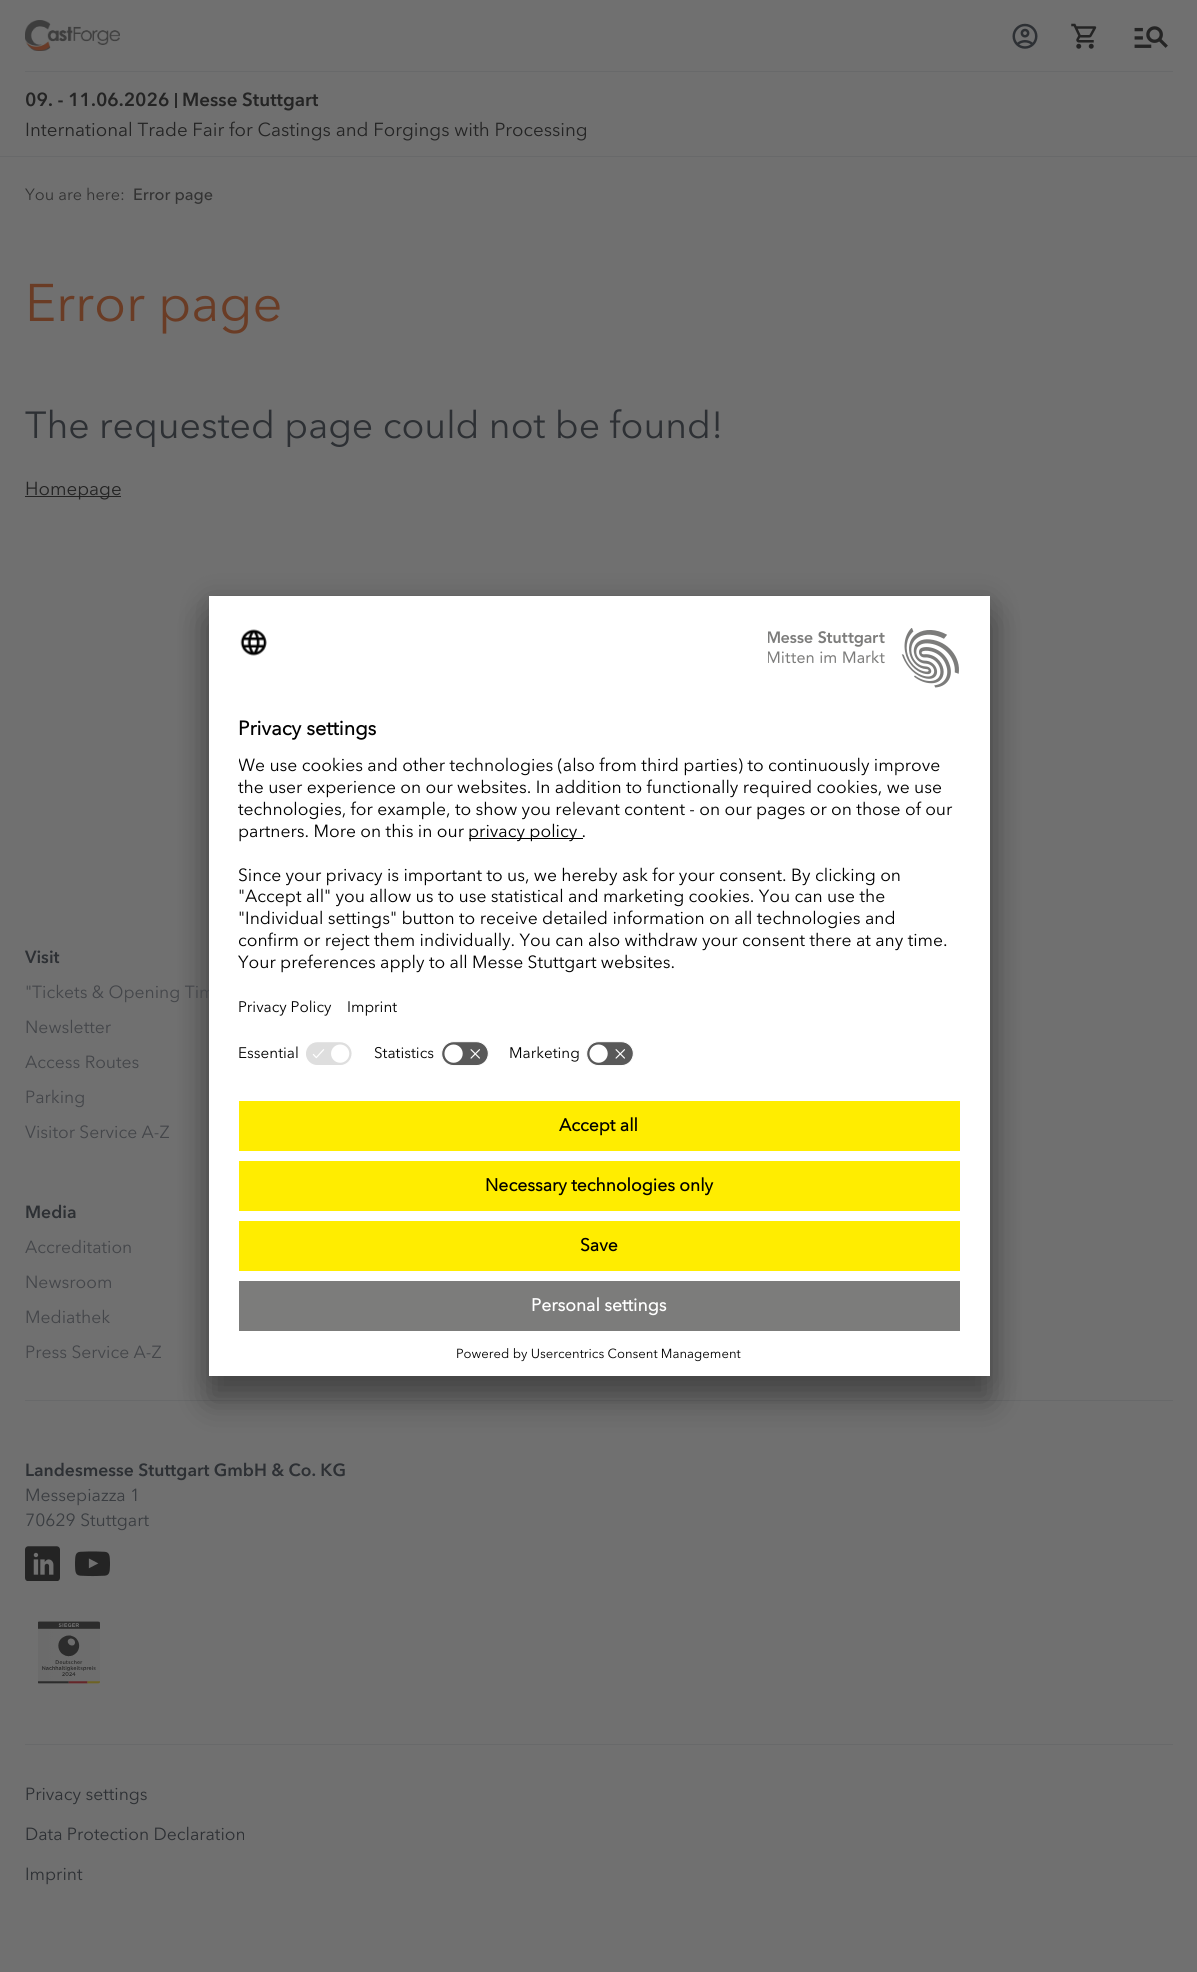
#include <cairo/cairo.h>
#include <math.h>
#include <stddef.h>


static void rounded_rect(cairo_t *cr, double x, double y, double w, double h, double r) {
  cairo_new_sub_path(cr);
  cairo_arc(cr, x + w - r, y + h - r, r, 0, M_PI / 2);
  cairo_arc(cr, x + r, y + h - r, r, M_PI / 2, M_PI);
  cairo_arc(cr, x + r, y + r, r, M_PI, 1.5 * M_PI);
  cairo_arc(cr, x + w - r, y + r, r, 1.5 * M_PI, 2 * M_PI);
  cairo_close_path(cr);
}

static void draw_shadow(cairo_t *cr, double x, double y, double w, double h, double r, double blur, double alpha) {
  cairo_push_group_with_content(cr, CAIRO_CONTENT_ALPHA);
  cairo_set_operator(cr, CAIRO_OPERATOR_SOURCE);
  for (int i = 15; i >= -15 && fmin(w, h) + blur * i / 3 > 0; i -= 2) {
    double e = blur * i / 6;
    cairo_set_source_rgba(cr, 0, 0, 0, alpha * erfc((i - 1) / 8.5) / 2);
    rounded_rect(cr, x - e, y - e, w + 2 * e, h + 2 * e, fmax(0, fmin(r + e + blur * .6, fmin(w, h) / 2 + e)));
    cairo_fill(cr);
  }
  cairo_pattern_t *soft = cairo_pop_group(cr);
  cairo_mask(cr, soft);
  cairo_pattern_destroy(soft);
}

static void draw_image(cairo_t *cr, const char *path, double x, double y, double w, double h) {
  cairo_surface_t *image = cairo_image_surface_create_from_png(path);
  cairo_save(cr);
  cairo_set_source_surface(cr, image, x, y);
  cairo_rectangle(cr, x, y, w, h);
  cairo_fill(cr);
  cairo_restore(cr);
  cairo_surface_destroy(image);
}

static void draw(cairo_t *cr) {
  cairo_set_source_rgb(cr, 112 / 255.0, 112 / 255.0, 112 / 255.0);
  cairo_paint(cr);
  cairo_set_source_rgb(cr, 104 / 255.0, 105 / 255.0, 106 / 255.0);
  cairo_rectangle(cr, 0, 156, 1197, 1);
  cairo_fill(cr);
  draw_image(cr, "images/1.png", 25, 20, 95, 31);
  draw_image(cr, "images/2.png", 1012, 23, 26, 26);
  draw_image(cr, "images/3.png", 1071, 23, 26, 26);
  draw_image(cr, "images/4.png", 1134, 26, 34, 22);
  cairo_rectangle(cr, 25, 71, 1148, 1);
  cairo_fill(cr);
  cairo_set_source_rgb(cr, 40 / 255.0, 40 / 255.0, 40 / 255.0);
  cairo_rectangle(cr, 175, 93, 2, 15);
  cairo_fill(cr);
  cairo_set_source_rgb(cr, 36 / 255.0, 36 / 255.0, 36 / 255.0);
  cairo_rectangle(cr, 25, 496, 96, 1);
  cairo_fill(cr);
  cairo_set_source_rgb(cr, 104 / 255.0, 105 / 255.0, 106 / 255.0);
  cairo_rectangle(cr, 25, 1400, 1148, 1);
  cairo_fill(cr);
  draw_image(cr, "images/5.png", 25, 1546, 35, 35);
  draw_image(cr, "images/6.png", 75, 1551, 35, 26);
  draw_image(cr, "images/7.png", 38, 1621, 62, 63);
  cairo_rectangle(cr, 25, 1744, 1148, 1);
  cairo_fill(cr);
  cairo_set_source_rgb(cr, 0, 0, 0);
  draw_shadow(cr, 209, 621, 781, 780, 0, 17.5, 0.3);
  draw_shadow(cr, 209, 603, 781, 780, 0, 16, 0.22);
  cairo_select_font_face(cr, "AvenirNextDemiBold", CAIRO_FONT_SLANT_NORMAL, CAIRO_FONT_WEIGHT_BOLD);
  cairo_set_font_size(cr, 18.75);
  cairo_set_source_rgb(cr, 36 / 255.0, 36 / 255.0, 36 / 255.0);
  cairo_move_to(cr, 25, 106);
  cairo_show_text(cr, "09. - 11.06.2026");
  cairo_move_to(cr, 182, 106);
  cairo_show_text(cr, "Messe Stuttgart");
  cairo_select_font_face(cr, "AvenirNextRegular", CAIRO_FONT_SLANT_NORMAL, CAIRO_FONT_WEIGHT_NORMAL);
  cairo_move_to(cr, 25, 136);
  cairo_show_text(cr, "International Trade Fair for Castings and Forgings with Processing");
  cairo_set_font_size(cr, 16.25);
  cairo_set_source_rgb(cr, 51 / 255.0, 51 / 255.0, 51 / 255.0);
  cairo_move_to(cr, 25, 200);
  cairo_show_text(cr, "You are here:");
  cairo_select_font_face(cr, "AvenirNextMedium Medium", CAIRO_FONT_SLANT_NORMAL, CAIRO_FONT_WEIGHT_NORMAL);
  cairo_move_to(cr, 133, 200);
  cairo_show_text(cr, "Error page");
  cairo_select_font_face(cr, "AvenirNextRegular", CAIRO_FONT_SLANT_NORMAL, CAIRO_FONT_WEIGHT_NORMAL);
  cairo_set_font_size(cr, 52.5);
  cairo_set_source_rgb(cr, 106 / 255.0, 60 / 255.0, 37 / 255.0);
  cairo_move_to(cr, 25, 321);
  cairo_show_text(cr, "Error page");
  cairo_set_font_size(cr, 37.5);
  cairo_set_source_rgb(cr, 45 / 255.0, 48 / 255.0, 52 / 255.0);
  cairo_move_to(cr, 25, 438);
  cairo_show_text(cr, "The requested page could not be found!");
  cairo_set_font_size(cr, 18.75);
  cairo_set_source_rgb(cr, 36 / 255.0, 36 / 255.0, 36 / 255.0);
  cairo_move_to(cr, 25, 495);
  cairo_show_text(cr, "Homepage");
  cairo_select_font_face(cr, "AvenirNextDemiBold", CAIRO_FONT_SLANT_NORMAL, CAIRO_FONT_WEIGHT_BOLD);
  cairo_set_font_size(cr, 17.5);
  cairo_set_source_rgb(cr, 45 / 255.0, 48 / 255.0, 52 / 255.0);
  cairo_move_to(cr, 25, 963);
  cairo_show_text(cr, "Visit");
  cairo_select_font_face(cr, "AvenirNextRegular", CAIRO_FONT_SLANT_NORMAL, CAIRO_FONT_WEIGHT_NORMAL);
  cairo_set_source_rgb(cr, 68 / 255.0, 70 / 255.0, 74 / 255.0);
  cairo_move_to(cr, 25, 998);
  cairo_show_text(cr, "\"Tickets & Opening Tim");
  cairo_move_to(cr, 25, 1033);
  cairo_show_text(cr, "Newsletter");
  cairo_move_to(cr, 25, 1068);
  cairo_show_text(cr, "Access Routes");
  cairo_move_to(cr, 25, 1103);
  cairo_show_text(cr, "Parking");
  cairo_move_to(cr, 25, 1138);
  cairo_show_text(cr, "Visitor Service A-Z");
  cairo_select_font_face(cr, "AvenirNextDemiBold", CAIRO_FONT_SLANT_NORMAL, CAIRO_FONT_WEIGHT_BOLD);
  cairo_set_source_rgb(cr, 45 / 255.0, 48 / 255.0, 52 / 255.0);
  cairo_move_to(cr, 25, 1218);
  cairo_show_text(cr, "Media");
  cairo_select_font_face(cr, "AvenirNextRegular", CAIRO_FONT_SLANT_NORMAL, CAIRO_FONT_WEIGHT_NORMAL);
  cairo_set_source_rgb(cr, 68 / 255.0, 70 / 255.0, 74 / 255.0);
  cairo_move_to(cr, 25, 1253);
  cairo_show_text(cr, "Accreditation");
  cairo_move_to(cr, 25, 1288);
  cairo_show_text(cr, "Newsroom");
  cairo_move_to(cr, 25, 1323);
  cairo_show_text(cr, "Mediathek");
  cairo_move_to(cr, 25, 1358);
  cairo_show_text(cr, "Press Service A-Z");
  cairo_select_font_face(cr, "AvenirNextDemiBold", CAIRO_FONT_SLANT_NORMAL, CAIRO_FONT_WEIGHT_BOLD);
  cairo_set_source_rgb(cr, 45 / 255.0, 48 / 255.0, 52 / 255.0);
  cairo_move_to(cr, 25, 1476);
  cairo_show_text(cr, "Landesmesse Stuttgart GmbH & Co. KG");
  cairo_select_font_face(cr, "AvenirNextRegular", CAIRO_FONT_SLANT_NORMAL, CAIRO_FONT_WEIGHT_NORMAL);
  cairo_set_source_rgb(cr, 58 / 255.0, 61 / 255.0, 65 / 255.0);
  cairo_move_to(cr, 25, 1501);
  cairo_show_text(cr, "Messepiazza 1");
  cairo_move_to(cr, 25, 1526);
  cairo_show_text(cr, "70629 Stuttgart");
  cairo_set_source_rgb(cr, 45 / 255.0, 48 / 255.0, 52 / 255.0);
  cairo_move_to(cr, 25, 1800);
  cairo_show_text(cr, "Privacy settings");
  cairo_move_to(cr, 25, 1840);
  cairo_show_text(cr, "Data Protection Declaration");
  cairo_move_to(cr, 25, 1880);
  cairo_show_text(cr, "Imprint");
  cairo_set_source_rgb(cr, 1, 1, 1);
  cairo_rectangle(cr, 209, 596, 781, 780);
  cairo_fill(cr);
  draw_image(cr, "images/8.png", 240, 629, 27, 27);
  draw_image(cr, "images/9.png", 768, 628, 191, 60);
  cairo_select_font_face(cr, "AvenirNextRegular", CAIRO_FONT_SLANT_NORMAL, CAIRO_FONT_WEIGHT_BOLD);
  cairo_set_font_size(cr, 19.75);
  cairo_set_source_rgb(cr, 0, 0, 0);
  cairo_move_to(cr, 238, 735);
  cairo_show_text(cr, "Privacy settings");
  cairo_save(cr);
  cairo_rectangle(cr, 239, 750, 721, 229);
  cairo_clip(cr);
  cairo_select_font_face(cr, "AvenirNextRegular", CAIRO_FONT_SLANT_NORMAL, CAIRO_FONT_WEIGHT_NORMAL);
  cairo_set_font_size(cr, 17.5);
  cairo_move_to(cr, 238, 771);
  cairo_show_text(cr, "We use cookies and other technologies (also from third parties) to continuously improve");
  cairo_restore(cr);
  cairo_select_font_face(cr, "AvenirNextRegular", CAIRO_FONT_SLANT_NORMAL, CAIRO_FONT_WEIGHT_NORMAL);
  cairo_set_font_size(cr, 17.5);
  cairo_move_to(cr, 238, 793);
  cairo_show_text(cr, "the user experience on our websites. In addition to functionally required cookies, we use");
  cairo_move_to(cr, 238, 815);
  cairo_show_text(cr, "technologies, for example, to show you relevant content - on our pages or on those of our");
  cairo_move_to(cr, 238, 837);
  cairo_show_text(cr, "partners. More on this in our");
  cairo_rectangle(cr, 469, 838, 114, 1);
  cairo_fill(cr);
  cairo_move_to(cr, 468, 837);
  cairo_show_text(cr, "privacy policy .");
  cairo_move_to(cr, 238, 881);
  cairo_show_text(cr, "Since your privacy is important to us, we hereby ask for your consent. By clicking on");
  cairo_move_to(cr, 238, 902);
  cairo_show_text(cr, "\"Accept all\" you allow us to use statistical and marketing cookies. You can use the");
  cairo_move_to(cr, 238, 924);
  cairo_show_text(cr, "\"Individual settings\" button to receive detailed information on all technologies and");
  cairo_move_to(cr, 238, 946);
  cairo_show_text(cr, "confirm or reject them individually. You can also withdraw your consent there at any time.");
  cairo_move_to(cr, 238, 968);
  cairo_show_text(cr, "Your preferences apply to all Messe Stuttgart websites.");
  cairo_set_font_size(cr, 15.25);
  cairo_move_to(cr, 238, 1012);
  cairo_show_text(cr, "Privacy Policy");
  cairo_move_to(cr, 347, 1012);
  cairo_show_text(cr, "Imprint");
  cairo_move_to(cr, 238, 1058);
  cairo_show_text(cr, "Essential");
  draw_image(cr, "images/10.png", 306, 1042, 46, 23);
  cairo_move_to(cr, 374, 1058);
  cairo_show_text(cr, "Statistics");
  draw_image(cr, "images/11.png", 441, 1041, 48, 25);
  cairo_move_to(cr, 509, 1058);
  cairo_show_text(cr, "Marketing");
  draw_image(cr, "images/11.png", 586, 1041, 48, 25);
  cairo_set_source_rgb(cr, 1, 237 / 255.0, 0);
  cairo_rectangle(cr, 239, 1101, 721, 50);
  cairo_fill(cr);
  cairo_select_font_face(cr, "AvenirNextRegular", CAIRO_FONT_SLANT_NORMAL, CAIRO_FONT_WEIGHT_BOLD);
  cairo_set_font_size(cr, 17.5);
  cairo_set_source_rgb(cr, 0, 0, 0);
  cairo_move_to(cr, 559, 1131);
  cairo_show_text(cr, "Accept all");
  cairo_set_source_rgb(cr, 1, 237 / 255.0, 0);
  cairo_rectangle(cr, 239, 1161, 721, 50);
  cairo_fill(cr);
  cairo_set_source_rgb(cr, 0, 0, 0);
  cairo_move_to(cr, 485, 1191);
  cairo_show_text(cr, "Necessary technologies only");
  cairo_set_source_rgb(cr, 1, 237 / 255.0, 0);
  cairo_rectangle(cr, 239, 1221, 721, 50);
  cairo_fill(cr);
  cairo_set_source_rgb(cr, 0, 0, 0);
  cairo_move_to(cr, 580, 1251);
  cairo_show_text(cr, "Save");
  cairo_set_source_rgb(cr, 124 / 255.0, 124 / 255.0, 123 / 255.0);
  cairo_rectangle(cr, 239, 1281, 721, 50);
  cairo_fill(cr);
  cairo_set_source_rgb(cr, 1, 1, 1);
  cairo_move_to(cr, 531, 1311);
  cairo_show_text(cr, "Personal settings");
  cairo_select_font_face(cr, "AvenirNextRegular", CAIRO_FONT_SLANT_NORMAL, CAIRO_FONT_WEIGHT_NORMAL);
  cairo_set_font_size(cr, 13.1);
  cairo_set_source_rgb(cr, 0, 0, 0);
  cairo_move_to(cr, 456, 1358);
  cairo_show_text(cr, "Powered by Usercentrics Consent Management");
}

int main(void) {
  cairo_surface_t *surface = cairo_image_surface_create(CAIRO_FORMAT_RGB24, 1197, 1972);
  cairo_t *cr = cairo_create(surface);
  cairo_font_options_t *options = cairo_font_options_create();
  cairo_font_options_set_hint_metrics(options, CAIRO_HINT_METRICS_OFF);
  cairo_font_options_set_hint_style(options, CAIRO_HINT_STYLE_NONE);
  cairo_set_font_options(cr, options);
  cairo_set_miter_limit(cr, 4);
  draw(cr);
  cairo_surface_write_to_png(surface, "out.png");
  cairo_font_options_destroy(options);
  cairo_destroy(cr);
  cairo_surface_destroy(surface);
  return 0;
}
